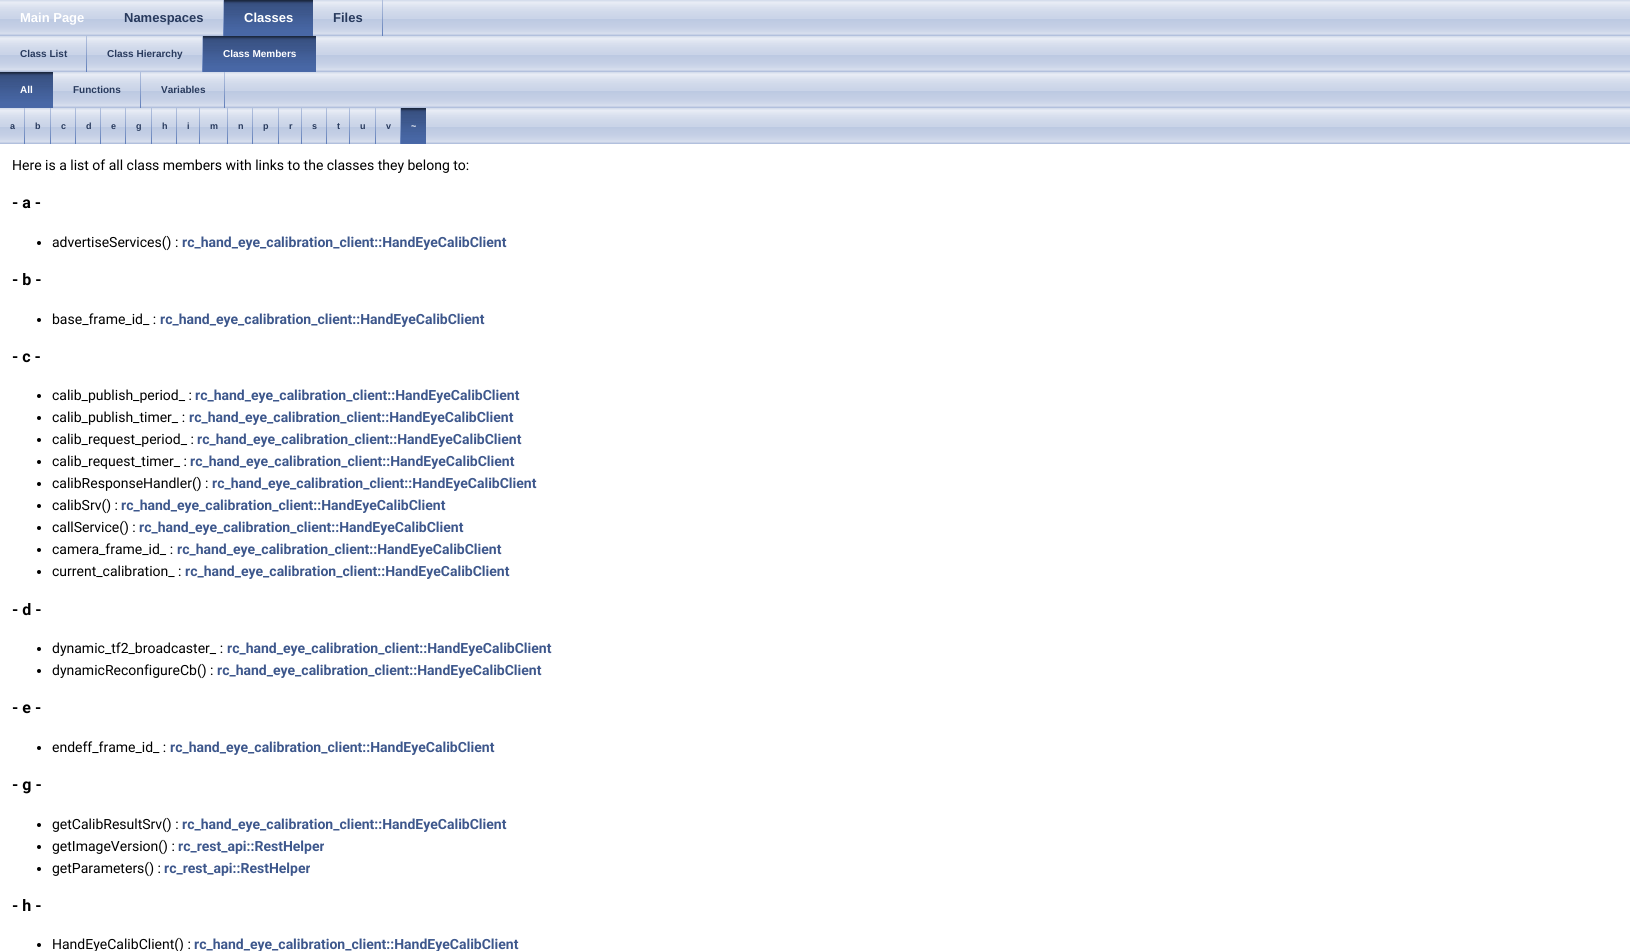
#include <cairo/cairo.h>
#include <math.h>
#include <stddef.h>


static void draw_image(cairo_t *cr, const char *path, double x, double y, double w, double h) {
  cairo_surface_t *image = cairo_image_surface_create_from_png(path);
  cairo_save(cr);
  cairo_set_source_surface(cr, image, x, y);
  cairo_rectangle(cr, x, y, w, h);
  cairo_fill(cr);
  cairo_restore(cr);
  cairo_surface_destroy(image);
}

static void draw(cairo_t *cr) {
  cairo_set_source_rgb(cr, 1, 1, 1);
  cairo_paint(cr);
  draw_image(cr, "images/1.png", 0, 0, 1630, 36);
  draw_image(cr, "images/2.png", 223, 0, 1, 36);
  draw_image(cr, "images/3.png", 224, 0, 89, 36);
  draw_image(cr, "images/2.png", 382, 0, 1, 36);
  draw_image(cr, "images/1.png", 0, 36, 1630, 36);
  draw_image(cr, "images/2.png", 86, 36, 1, 36);
  draw_image(cr, "images/2.png", 202, 36, 1, 36);
  draw_image(cr, "images/4.png", 203, 36, 113, 36);
  draw_image(cr, "images/5.png", 53, 72, 1577, 36);
  draw_image(cr, "images/6.png", 0, 72, 53, 36);
  draw_image(cr, "images/2.png", 140, 72, 1, 36);
  draw_image(cr, "images/2.png", 224, 72, 1, 36);
  draw_image(cr, "images/1.png", 0, 108, 1630, 36);
  draw_image(cr, "images/2.png", 24, 108, 1, 36);
  draw_image(cr, "images/2.png", 50, 108, 1, 36);
  draw_image(cr, "images/2.png", 75, 108, 1, 36);
  draw_image(cr, "images/2.png", 100, 108, 1, 36);
  draw_image(cr, "images/2.png", 125, 108, 1, 36);
  draw_image(cr, "images/2.png", 151, 108, 1, 36);
  draw_image(cr, "images/2.png", 176, 108, 1, 36);
  draw_image(cr, "images/2.png", 199, 108, 1, 36);
  draw_image(cr, "images/2.png", 227, 108, 1, 36);
  draw_image(cr, "images/2.png", 252, 108, 1, 36);
  draw_image(cr, "images/2.png", 278, 108, 1, 36);
  draw_image(cr, "images/2.png", 301, 108, 1, 36);
  draw_image(cr, "images/2.png", 326, 108, 1, 36);
  draw_image(cr, "images/2.png", 349, 108, 1, 36);
  draw_image(cr, "images/2.png", 375, 108, 1, 36);
  draw_image(cr, "images/2.png", 400, 108, 1, 36);
  draw_image(cr, "images/7.png", 401, 108, 25, 36);
  cairo_set_source_rgb(cr, 0, 0, 0);
  cairo_arc(cr, 39, 243, 2, 0, 2 * M_PI);
  cairo_fill(cr);
  cairo_arc(cr, 39, 320, 2, 0, 2 * M_PI);
  cairo_fill(cr);
  cairo_arc(cr, 39, 396, 2, 0, 2 * M_PI);
  cairo_fill(cr);
  cairo_arc(cr, 39, 418, 2, 0, 2 * M_PI);
  cairo_fill(cr);
  cairo_arc(cr, 39, 440, 2, 0, 2 * M_PI);
  cairo_fill(cr);
  cairo_arc(cr, 39, 462, 2, 0, 2 * M_PI);
  cairo_fill(cr);
  cairo_arc(cr, 39, 484, 2, 0, 2 * M_PI);
  cairo_fill(cr);
  cairo_arc(cr, 39, 506, 2, 0, 2 * M_PI);
  cairo_fill(cr);
  cairo_arc(cr, 39, 528, 2, 0, 2 * M_PI);
  cairo_fill(cr);
  cairo_arc(cr, 39, 550, 2, 0, 2 * M_PI);
  cairo_fill(cr);
  cairo_arc(cr, 39, 572, 2, 0, 2 * M_PI);
  cairo_fill(cr);
  cairo_arc(cr, 39, 649, 2, 0, 2 * M_PI);
  cairo_fill(cr);
  cairo_arc(cr, 39, 671, 2, 0, 2 * M_PI);
  cairo_fill(cr);
  cairo_arc(cr, 39, 748, 2, 0, 2 * M_PI);
  cairo_fill(cr);
  cairo_arc(cr, 39, 825, 2, 0, 2 * M_PI);
  cairo_fill(cr);
  cairo_arc(cr, 39, 847, 2, 0, 2 * M_PI);
  cairo_fill(cr);
  cairo_arc(cr, 39, 869, 2, 0, 2 * M_PI);
  cairo_fill(cr);
  cairo_arc(cr, 39, 945, 2, 0, 2 * M_PI);
  cairo_fill(cr);
  cairo_select_font_face(cr, "Liberation Sans", CAIRO_FONT_SLANT_NORMAL, CAIRO_FONT_WEIGHT_BOLD);
  cairo_set_font_size(cr, 13);
  cairo_set_source_rgb(cr, 1, 1, 1);
  cairo_move_to(cr, 20, 22);
  cairo_show_text(cr, "Main Page");
  cairo_set_source_rgb(cr, 40 / 255.0, 58 / 255.0, 93 / 255.0);
  cairo_move_to(cr, 124, 22);
  cairo_show_text(cr, "Namespaces");
  cairo_set_source_rgb(cr, 1, 1, 1);
  cairo_move_to(cr, 244, 22);
  cairo_show_text(cr, "Classes");
  cairo_set_source_rgb(cr, 40 / 255.0, 58 / 255.0, 93 / 255.0);
  cairo_move_to(cr, 333, 22);
  cairo_show_text(cr, "Files");
  cairo_set_font_size(cr, 10);
  cairo_move_to(cr, 20, 57);
  cairo_show_text(cr, "Class List");
  cairo_move_to(cr, 107, 57);
  cairo_show_text(cr, "Class Hierarchy");
  cairo_set_source_rgb(cr, 1, 1, 1);
  cairo_move_to(cr, 223, 57);
  cairo_show_text(cr, "Class Members");
  cairo_move_to(cr, 20, 93);
  cairo_show_text(cr, "All");
  cairo_set_source_rgb(cr, 40 / 255.0, 58 / 255.0, 93 / 255.0);
  cairo_move_to(cr, 73, 93);
  cairo_show_text(cr, "Functions");
  cairo_move_to(cr, 161, 93);
  cairo_show_text(cr, "Variables");
  cairo_set_font_size(cr, 9);
  cairo_move_to(cr, 10, 129);
  cairo_show_text(cr, "a");
  cairo_move_to(cr, 35, 129);
  cairo_show_text(cr, "b");
  cairo_move_to(cr, 61, 129);
  cairo_show_text(cr, "c");
  cairo_move_to(cr, 86, 129);
  cairo_show_text(cr, "d");
  cairo_move_to(cr, 111, 129);
  cairo_show_text(cr, "e");
  cairo_move_to(cr, 136, 129);
  cairo_show_text(cr, "g");
  cairo_move_to(cr, 162, 129);
  cairo_show_text(cr, "h");
  cairo_move_to(cr, 187, 129);
  cairo_show_text(cr, "i");
  cairo_move_to(cr, 210, 129);
  cairo_show_text(cr, "m");
  cairo_move_to(cr, 238, 129);
  cairo_show_text(cr, "n");
  cairo_move_to(cr, 263, 129);
  cairo_show_text(cr, "p");
  cairo_move_to(cr, 289, 129);
  cairo_show_text(cr, "r");
  cairo_move_to(cr, 312, 129);
  cairo_show_text(cr, "s");
  cairo_move_to(cr, 337, 129);
  cairo_show_text(cr, "t");
  cairo_move_to(cr, 360, 129);
  cairo_show_text(cr, "u");
  cairo_move_to(cr, 386, 129);
  cairo_show_text(cr, "v");
  cairo_set_source_rgb(cr, 1, 1, 1);
  cairo_move_to(cr, 411, 129);
  cairo_show_text(cr, "~");
  cairo_select_font_face(cr, "Roboto", CAIRO_FONT_SLANT_NORMAL, CAIRO_FONT_WEIGHT_NORMAL);
  cairo_set_font_size(cr, 14);
  cairo_set_source_rgb(cr, 0, 0, 0);
  cairo_move_to(cr, 12, 170);
  cairo_show_text(cr, "Here is a list of all class members with links to the classes they belong to:");
  cairo_select_font_face(cr, "Roboto", CAIRO_FONT_SLANT_NORMAL, CAIRO_FONT_WEIGHT_BOLD);
  cairo_set_font_size(cr, 16);
  cairo_move_to(cr, 12, 208);
  cairo_show_text(cr, "- a -");
  cairo_select_font_face(cr, "Roboto", CAIRO_FONT_SLANT_NORMAL, CAIRO_FONT_WEIGHT_NORMAL);
  cairo_set_font_size(cr, 14);
  cairo_move_to(cr, 52, 247);
  cairo_show_text(cr, "advertiseServices() :");
  cairo_select_font_face(cr, "Roboto", CAIRO_FONT_SLANT_NORMAL, CAIRO_FONT_WEIGHT_BOLD);
  cairo_set_source_rgb(cr, 61 / 255.0, 87 / 255.0, 140 / 255.0);
  cairo_move_to(cr, 182, 247);
  cairo_show_text(cr, "rc_hand_eye_calibration_client::HandEyeCalibClient");
  cairo_set_font_size(cr, 16);
  cairo_set_source_rgb(cr, 0, 0, 0);
  cairo_move_to(cr, 12, 285);
  cairo_show_text(cr, "- b -");
  cairo_select_font_face(cr, "Roboto", CAIRO_FONT_SLANT_NORMAL, CAIRO_FONT_WEIGHT_NORMAL);
  cairo_set_font_size(cr, 14);
  cairo_move_to(cr, 52, 324);
  cairo_show_text(cr, "base_frame_id_ :");
  cairo_select_font_face(cr, "Roboto", CAIRO_FONT_SLANT_NORMAL, CAIRO_FONT_WEIGHT_BOLD);
  cairo_set_source_rgb(cr, 61 / 255.0, 87 / 255.0, 140 / 255.0);
  cairo_move_to(cr, 160, 324);
  cairo_show_text(cr, "rc_hand_eye_calibration_client::HandEyeCalibClient");
  cairo_set_font_size(cr, 16);
  cairo_set_source_rgb(cr, 0, 0, 0);
  cairo_move_to(cr, 12, 362);
  cairo_show_text(cr, "- c -");
  cairo_select_font_face(cr, "Roboto", CAIRO_FONT_SLANT_NORMAL, CAIRO_FONT_WEIGHT_NORMAL);
  cairo_set_font_size(cr, 14);
  cairo_move_to(cr, 52, 400);
  cairo_show_text(cr, "calib_publish_period_ :");
  cairo_select_font_face(cr, "Roboto", CAIRO_FONT_SLANT_NORMAL, CAIRO_FONT_WEIGHT_BOLD);
  cairo_set_source_rgb(cr, 61 / 255.0, 87 / 255.0, 140 / 255.0);
  cairo_move_to(cr, 195, 400);
  cairo_show_text(cr, "rc_hand_eye_calibration_client::HandEyeCalibClient");
  cairo_select_font_face(cr, "Roboto", CAIRO_FONT_SLANT_NORMAL, CAIRO_FONT_WEIGHT_NORMAL);
  cairo_set_source_rgb(cr, 0, 0, 0);
  cairo_move_to(cr, 52, 422);
  cairo_show_text(cr, "calib_publish_timer_ :");
  cairo_select_font_face(cr, "Roboto", CAIRO_FONT_SLANT_NORMAL, CAIRO_FONT_WEIGHT_BOLD);
  cairo_set_source_rgb(cr, 61 / 255.0, 87 / 255.0, 140 / 255.0);
  cairo_move_to(cr, 189, 422);
  cairo_show_text(cr, "rc_hand_eye_calibration_client::HandEyeCalibClient");
  cairo_select_font_face(cr, "Roboto", CAIRO_FONT_SLANT_NORMAL, CAIRO_FONT_WEIGHT_NORMAL);
  cairo_set_source_rgb(cr, 0, 0, 0);
  cairo_move_to(cr, 52, 444);
  cairo_show_text(cr, "calib_request_period_ :");
  cairo_select_font_face(cr, "Roboto", CAIRO_FONT_SLANT_NORMAL, CAIRO_FONT_WEIGHT_BOLD);
  cairo_set_source_rgb(cr, 61 / 255.0, 87 / 255.0, 140 / 255.0);
  cairo_move_to(cr, 197, 444);
  cairo_show_text(cr, "rc_hand_eye_calibration_client::HandEyeCalibClient");
  cairo_select_font_face(cr, "Roboto", CAIRO_FONT_SLANT_NORMAL, CAIRO_FONT_WEIGHT_NORMAL);
  cairo_set_source_rgb(cr, 0, 0, 0);
  cairo_move_to(cr, 52, 466);
  cairo_show_text(cr, "calib_request_timer_ :");
  cairo_select_font_face(cr, "Roboto", CAIRO_FONT_SLANT_NORMAL, CAIRO_FONT_WEIGHT_BOLD);
  cairo_set_source_rgb(cr, 61 / 255.0, 87 / 255.0, 140 / 255.0);
  cairo_move_to(cr, 190, 466);
  cairo_show_text(cr, "rc_hand_eye_calibration_client::HandEyeCalibClient");
  cairo_select_font_face(cr, "Roboto", CAIRO_FONT_SLANT_NORMAL, CAIRO_FONT_WEIGHT_NORMAL);
  cairo_set_source_rgb(cr, 0, 0, 0);
  cairo_move_to(cr, 52, 488);
  cairo_show_text(cr, "calibResponseHandler() :");
  cairo_select_font_face(cr, "Roboto", CAIRO_FONT_SLANT_NORMAL, CAIRO_FONT_WEIGHT_BOLD);
  cairo_set_source_rgb(cr, 61 / 255.0, 87 / 255.0, 140 / 255.0);
  cairo_move_to(cr, 212, 488);
  cairo_show_text(cr, "rc_hand_eye_calibration_client::HandEyeCalibClient");
  cairo_select_font_face(cr, "Roboto", CAIRO_FONT_SLANT_NORMAL, CAIRO_FONT_WEIGHT_NORMAL);
  cairo_set_source_rgb(cr, 0, 0, 0);
  cairo_move_to(cr, 52, 510);
  cairo_show_text(cr, "calibSrv() :");
  cairo_select_font_face(cr, "Roboto", CAIRO_FONT_SLANT_NORMAL, CAIRO_FONT_WEIGHT_BOLD);
  cairo_set_source_rgb(cr, 61 / 255.0, 87 / 255.0, 140 / 255.0);
  cairo_move_to(cr, 121, 510);
  cairo_show_text(cr, "rc_hand_eye_calibration_client::HandEyeCalibClient");
  cairo_select_font_face(cr, "Roboto", CAIRO_FONT_SLANT_NORMAL, CAIRO_FONT_WEIGHT_NORMAL);
  cairo_set_source_rgb(cr, 0, 0, 0);
  cairo_move_to(cr, 52, 532);
  cairo_show_text(cr, "callService() :");
  cairo_select_font_face(cr, "Roboto", CAIRO_FONT_SLANT_NORMAL, CAIRO_FONT_WEIGHT_BOLD);
  cairo_set_source_rgb(cr, 61 / 255.0, 87 / 255.0, 140 / 255.0);
  cairo_move_to(cr, 139, 532);
  cairo_show_text(cr, "rc_hand_eye_calibration_client::HandEyeCalibClient");
  cairo_select_font_face(cr, "Roboto", CAIRO_FONT_SLANT_NORMAL, CAIRO_FONT_WEIGHT_NORMAL);
  cairo_set_source_rgb(cr, 0, 0, 0);
  cairo_move_to(cr, 52, 554);
  cairo_show_text(cr, "camera_frame_id_ :");
  cairo_select_font_face(cr, "Roboto", CAIRO_FONT_SLANT_NORMAL, CAIRO_FONT_WEIGHT_BOLD);
  cairo_set_source_rgb(cr, 61 / 255.0, 87 / 255.0, 140 / 255.0);
  cairo_move_to(cr, 177, 554);
  cairo_show_text(cr, "rc_hand_eye_calibration_client::HandEyeCalibClient");
  cairo_select_font_face(cr, "Roboto", CAIRO_FONT_SLANT_NORMAL, CAIRO_FONT_WEIGHT_NORMAL);
  cairo_set_source_rgb(cr, 0, 0, 0);
  cairo_move_to(cr, 52, 576);
  cairo_show_text(cr, "current_calibration_ :");
  cairo_select_font_face(cr, "Roboto", CAIRO_FONT_SLANT_NORMAL, CAIRO_FONT_WEIGHT_BOLD);
  cairo_set_source_rgb(cr, 61 / 255.0, 87 / 255.0, 140 / 255.0);
  cairo_move_to(cr, 185, 576);
  cairo_show_text(cr, "rc_hand_eye_calibration_client::HandEyeCalibClient");
  cairo_set_font_size(cr, 16);
  cairo_set_source_rgb(cr, 0, 0, 0);
  cairo_move_to(cr, 12, 615);
  cairo_show_text(cr, "- d -");
  cairo_select_font_face(cr, "Roboto", CAIRO_FONT_SLANT_NORMAL, CAIRO_FONT_WEIGHT_NORMAL);
  cairo_set_font_size(cr, 14);
  cairo_move_to(cr, 52, 653);
  cairo_show_text(cr, "dynamic_tf2_broadcaster_ :");
  cairo_select_font_face(cr, "Roboto", CAIRO_FONT_SLANT_NORMAL, CAIRO_FONT_WEIGHT_BOLD);
  cairo_set_source_rgb(cr, 61 / 255.0, 87 / 255.0, 140 / 255.0);
  cairo_move_to(cr, 227, 653);
  cairo_show_text(cr, "rc_hand_eye_calibration_client::HandEyeCalibClient");
  cairo_select_font_face(cr, "Roboto", CAIRO_FONT_SLANT_NORMAL, CAIRO_FONT_WEIGHT_NORMAL);
  cairo_set_source_rgb(cr, 0, 0, 0);
  cairo_move_to(cr, 52, 675);
  cairo_show_text(cr, "dynamicReconfigureCb() :");
  cairo_select_font_face(cr, "Roboto", CAIRO_FONT_SLANT_NORMAL, CAIRO_FONT_WEIGHT_BOLD);
  cairo_set_source_rgb(cr, 61 / 255.0, 87 / 255.0, 140 / 255.0);
  cairo_move_to(cr, 217, 675);
  cairo_show_text(cr, "rc_hand_eye_calibration_client::HandEyeCalibClient");
  cairo_set_font_size(cr, 16);
  cairo_set_source_rgb(cr, 0, 0, 0);
  cairo_move_to(cr, 12, 713);
  cairo_show_text(cr, "- e -");
  cairo_select_font_face(cr, "Roboto", CAIRO_FONT_SLANT_NORMAL, CAIRO_FONT_WEIGHT_NORMAL);
  cairo_set_font_size(cr, 14);
  cairo_move_to(cr, 52, 752);
  cairo_show_text(cr, "endeff_frame_id_ :");
  cairo_select_font_face(cr, "Roboto", CAIRO_FONT_SLANT_NORMAL, CAIRO_FONT_WEIGHT_BOLD);
  cairo_set_source_rgb(cr, 61 / 255.0, 87 / 255.0, 140 / 255.0);
  cairo_move_to(cr, 170, 752);
  cairo_show_text(cr, "rc_hand_eye_calibration_client::HandEyeCalibClient");
  cairo_set_font_size(cr, 16);
  cairo_set_source_rgb(cr, 0, 0, 0);
  cairo_move_to(cr, 12, 790);
  cairo_show_text(cr, "- g -");
  cairo_select_font_face(cr, "Roboto", CAIRO_FONT_SLANT_NORMAL, CAIRO_FONT_WEIGHT_NORMAL);
  cairo_set_font_size(cr, 14);
  cairo_move_to(cr, 52, 829);
  cairo_show_text(cr, "getCalibResultSrv() :");
  cairo_select_font_face(cr, "Roboto", CAIRO_FONT_SLANT_NORMAL, CAIRO_FONT_WEIGHT_BOLD);
  cairo_set_source_rgb(cr, 61 / 255.0, 87 / 255.0, 140 / 255.0);
  cairo_move_to(cr, 182, 829);
  cairo_show_text(cr, "rc_hand_eye_calibration_client::HandEyeCalibClient");
  cairo_select_font_face(cr, "Roboto", CAIRO_FONT_SLANT_NORMAL, CAIRO_FONT_WEIGHT_NORMAL);
  cairo_set_source_rgb(cr, 0, 0, 0);
  cairo_move_to(cr, 52, 851);
  cairo_show_text(cr, "getImageVersion() :");
  cairo_select_font_face(cr, "Roboto", CAIRO_FONT_SLANT_NORMAL, CAIRO_FONT_WEIGHT_BOLD);
  cairo_set_source_rgb(cr, 61 / 255.0, 87 / 255.0, 140 / 255.0);
  cairo_move_to(cr, 178, 851);
  cairo_show_text(cr, "rc_rest_api::RestHelper");
  cairo_select_font_face(cr, "Roboto", CAIRO_FONT_SLANT_NORMAL, CAIRO_FONT_WEIGHT_NORMAL);
  cairo_set_source_rgb(cr, 0, 0, 0);
  cairo_move_to(cr, 52, 873);
  cairo_show_text(cr, "getParameters() :");
  cairo_select_font_face(cr, "Roboto", CAIRO_FONT_SLANT_NORMAL, CAIRO_FONT_WEIGHT_BOLD);
  cairo_set_source_rgb(cr, 61 / 255.0, 87 / 255.0, 140 / 255.0);
  cairo_move_to(cr, 164, 873);
  cairo_show_text(cr, "rc_rest_api::RestHelper");
  cairo_set_font_size(cr, 16);
  cairo_set_source_rgb(cr, 0, 0, 0);
  cairo_move_to(cr, 12, 911);
  cairo_show_text(cr, "- h -");
  cairo_select_font_face(cr, "Roboto", CAIRO_FONT_SLANT_NORMAL, CAIRO_FONT_WEIGHT_NORMAL);
  cairo_set_font_size(cr, 14);
  cairo_move_to(cr, 52, 949);
  cairo_show_text(cr, "HandEyeCalibClient() :");
  cairo_select_font_face(cr, "Roboto", CAIRO_FONT_SLANT_NORMAL, CAIRO_FONT_WEIGHT_BOLD);
  cairo_set_source_rgb(cr, 61 / 255.0, 87 / 255.0, 140 / 255.0);
  cairo_move_to(cr, 194, 949);
  cairo_show_text(cr, "rc_hand_eye_calibration_client::HandEyeCalibClient");
}

int main(void) {
  cairo_surface_t *surface = cairo_image_surface_create(CAIRO_FORMAT_RGB24, 1630, 951);
  cairo_t *cr = cairo_create(surface);
  cairo_font_options_t *options = cairo_font_options_create();
  cairo_font_options_set_hint_metrics(options, CAIRO_HINT_METRICS_OFF);
  cairo_font_options_set_hint_style(options, CAIRO_HINT_STYLE_NONE);
  cairo_set_font_options(cr, options);
  cairo_set_miter_limit(cr, 4);
  draw(cr);
  cairo_surface_write_to_png(surface, "out.png");
  cairo_font_options_destroy(options);
  cairo_destroy(cr);
  cairo_surface_destroy(surface);
  return 0;
}
